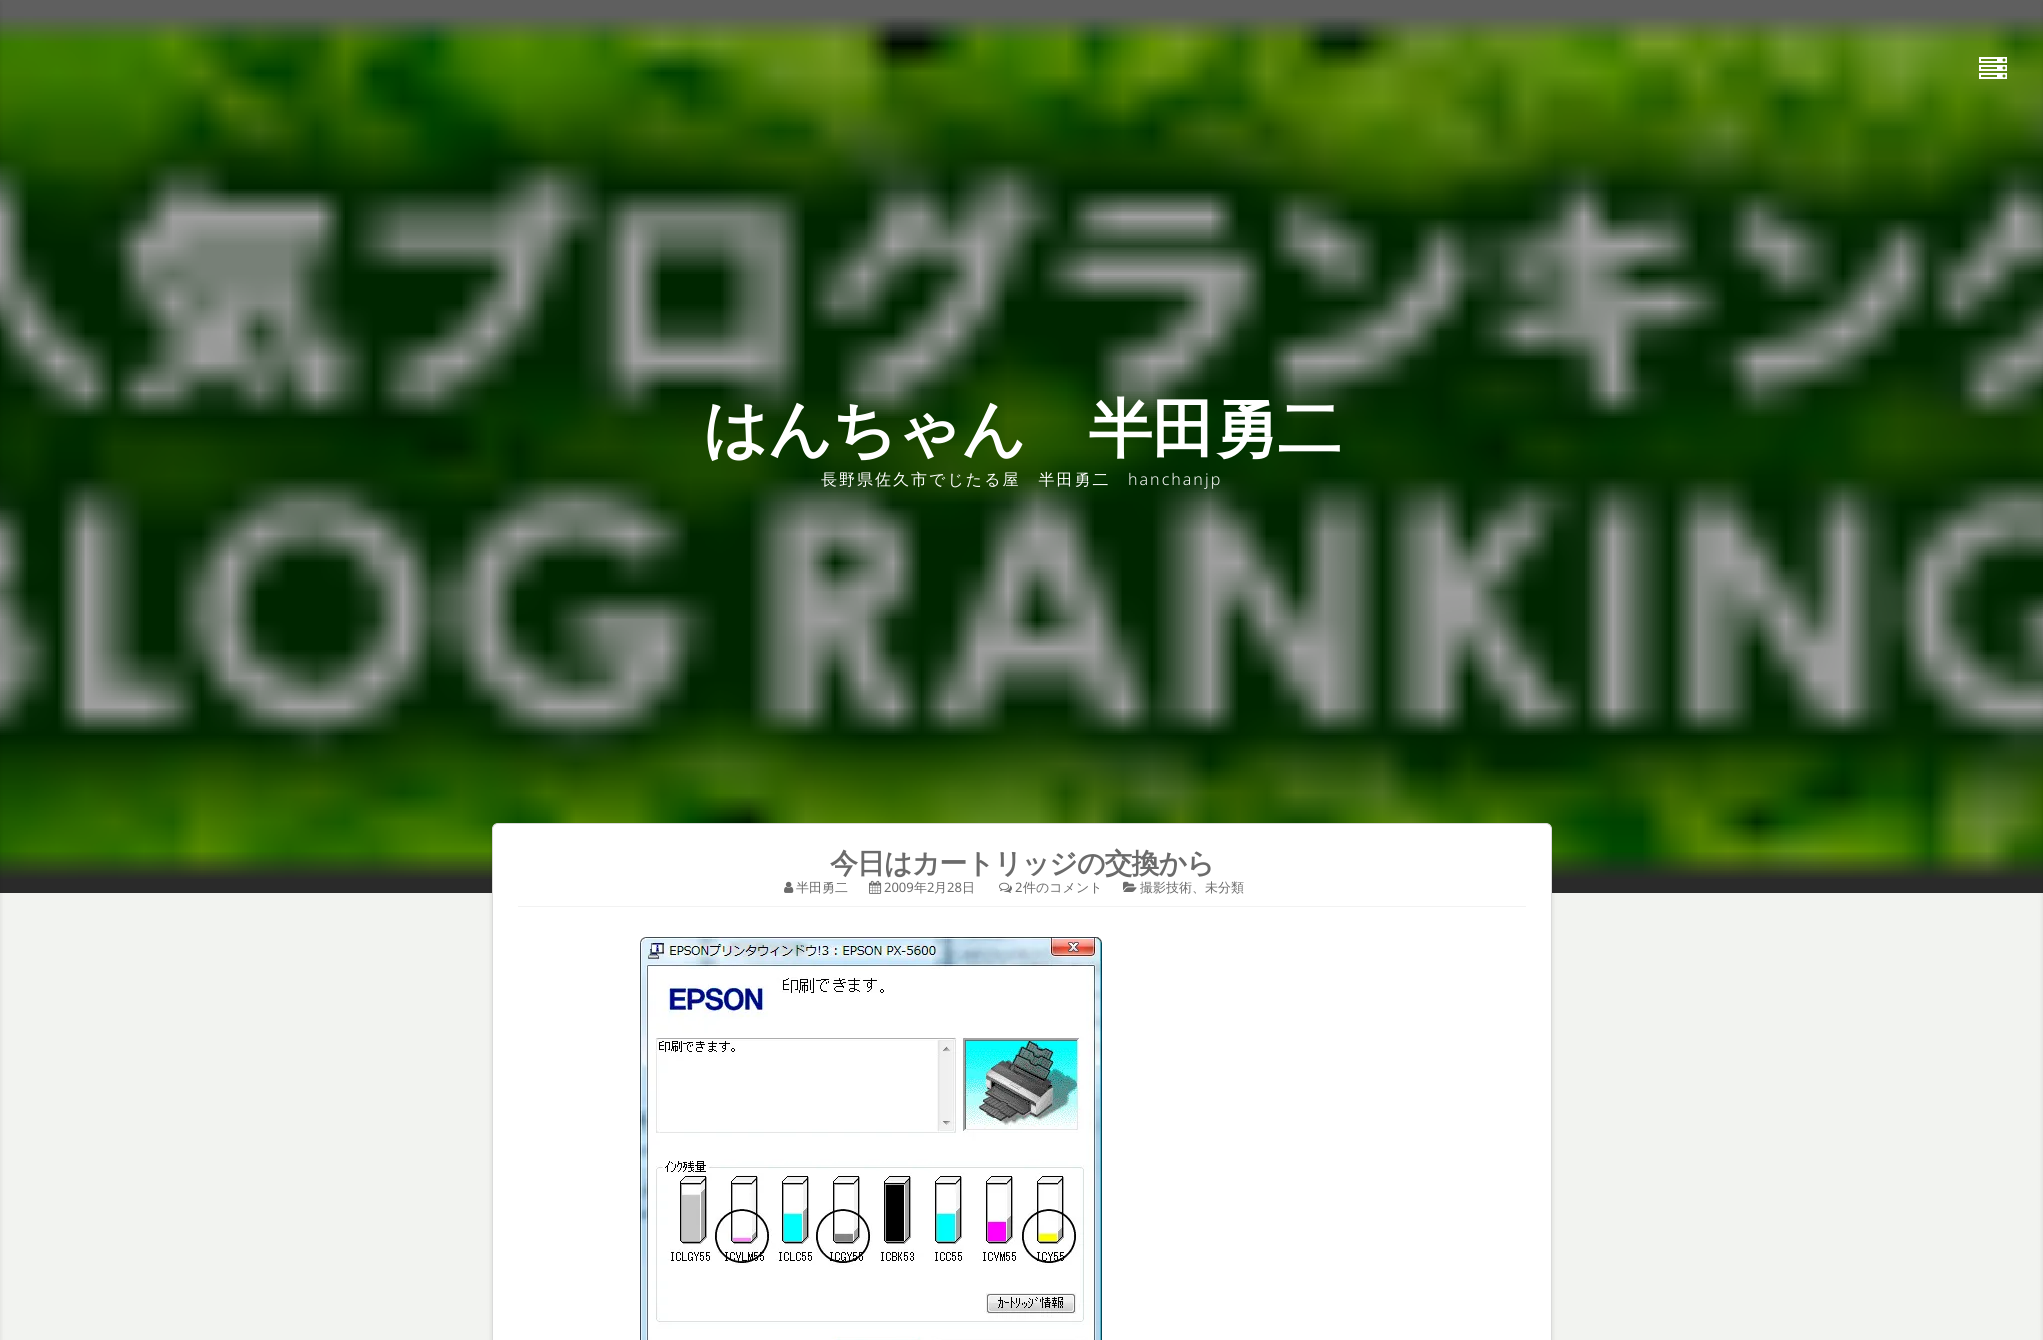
#include <cairo/cairo.h>
#include <math.h>
#include <stddef.h>


static void draw_spaced(cairo_t *cr, double x, double y, const char *s, double letter, double word) {
  cairo_move_to(cr, x, y);
  while (*s) {
    char ch[5] = {0};
    int n = 0;
    do ch[n++] = *s++; while ((*s & 0xC0) == 0x80);
    cairo_show_text(cr, ch);
    cairo_rel_move_to(cr, letter + word * (*ch == ' '), 0);
  }
}

static void rounded_rect(cairo_t *cr, double x, double y, double w, double h, double r) {
  cairo_new_sub_path(cr);
  cairo_arc(cr, x + w - r, y + h - r, r, 0, M_PI / 2);
  cairo_arc(cr, x + r, y + h - r, r, M_PI / 2, M_PI);
  cairo_arc(cr, x + r, y + r, r, M_PI, 1.5 * M_PI);
  cairo_arc(cr, x + w - r, y + r, r, 1.5 * M_PI, 2 * M_PI);
  cairo_close_path(cr);
}

static void draw_shadow(cairo_t *cr, double x, double y, double w, double h, double r, double blur, double alpha) {
  cairo_push_group_with_content(cr, CAIRO_CONTENT_ALPHA);
  cairo_set_operator(cr, CAIRO_OPERATOR_SOURCE);
  for (int i = 15; i >= -15 && fmin(w, h) + blur * i / 3 > 0; i -= 2) {
    double e = blur * i / 6;
    cairo_set_source_rgba(cr, 0, 0, 0, alpha * erfc((i - 1) / 8.5) / 2);
    rounded_rect(cr, x - e, y - e, w + 2 * e, h + 2 * e, fmax(0, fmin(r + e + blur * .6, fmin(w, h) / 2 + e)));
    cairo_fill(cr);
  }
  cairo_pattern_t *soft = cairo_pop_group(cr);
  cairo_mask(cr, soft);
  cairo_pattern_destroy(soft);
}

static void draw_image(cairo_t *cr, const char *path, double x, double y, double w, double h) {
  cairo_surface_t *image = cairo_image_surface_create_from_png(path);
  cairo_save(cr);
  cairo_set_source_surface(cr, image, x, y);
  cairo_rectangle(cr, x, y, w, h);
  cairo_fill(cr);
  cairo_restore(cr);
  cairo_surface_destroy(image);
}

static void draw(cairo_t *cr) {
  cairo_set_source_rgb(cr, 242 / 255.0, 243 / 255.0, 240 / 255.0);
  cairo_paint(cr);
  draw_image(cr, "images/2.png", 0, 0, 2043, 893);
  draw_image(cr, "images/1.png", 1979, 57, 28, 22);
  cairo_set_source_rgb(cr, 0, 0, 0);
  draw_shadow(cr, -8, 2, 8, 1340, 0, 2.5, 0.11);
  draw_shadow(cr, 492, 825, 1060, 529, 6, 2.5, 0.11);
  cairo_set_source_rgb(cr, 1, 1, 1);
  rounded_rect(cr, 492.5, 823.5, 1059, 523, 5.5);
  cairo_fill_preserve(cr);
  cairo_set_source_rgb(cr, 218 / 255.0, 218 / 255.0, 218 / 255.0);
  cairo_set_line_width(cr, 1);
  cairo_stroke(cr);
  cairo_set_source_rgb(cr, 242 / 255.0, 242 / 255.0, 242 / 255.0);
  cairo_rectangle(cr, 518, 906, 1008, 1);
  cairo_fill(cr);
  draw_image(cr, "images/3.png", 784, 881, 10, 12);
  draw_image(cr, "images/4.png", 869, 880, 13, 14);
  draw_image(cr, "images/5.png", 999, 882, 13, 11);
  draw_image(cr, "images/6.png", 1123, 881, 14, 11);
  draw_image(cr, "images/7.png", 640, 937, 462, 403);
  cairo_set_source_rgb(cr, 0, 0, 0);
  draw_shadow(cr, 2043, 2, 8, 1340, 0, 2.5, 0.11);
  cairo_select_font_face(cr, "WenQuanYi Zen Hei", CAIRO_FONT_SLANT_NORMAL, CAIRO_FONT_WEIGHT_BOLD);
  cairo_set_font_size(cr, 64);
  cairo_set_source_rgb(cr, 1, 1, 1);
  draw_spaced(cr, 703, 451, "はんちゃん　半田勇二", -1, 0);
  cairo_select_font_face(cr, "WenQuanYi Zen Hei Medium", CAIRO_FONT_SLANT_NORMAL, CAIRO_FONT_WEIGHT_NORMAL);
  cairo_set_font_size(cr, 16);
  draw_spaced(cr, 821, 485, "長野県佐久市でじたる屋　半田勇二", 2, 0);
  cairo_select_font_face(cr, "Noto Sans Light", CAIRO_FONT_SLANT_NORMAL, CAIRO_FONT_WEIGHT_NORMAL);
  draw_spaced(cr, 1128, 485, "hanchanjp", 2, 0);
  cairo_select_font_face(cr, "WenQuanYi Zen Hei", CAIRO_FONT_SLANT_NORMAL, CAIRO_FONT_WEIGHT_BOLD);
  cairo_set_font_size(cr, 28);
  cairo_set_source_rgb(cr, 107 / 255.0, 107 / 255.0, 107 / 255.0);
  draw_spaced(cr, 830, 873, "今日はカートリッジの交換から", -1, 0);
  cairo_select_font_face(cr, "WenQuanYi Zen Hei Medium", CAIRO_FONT_SLANT_NORMAL, CAIRO_FONT_WEIGHT_NORMAL);
  cairo_set_font_size(cr, 13);
  cairo_move_to(cr, 796, 892);
  cairo_show_text(cr, "半田勇二");
  cairo_select_font_face(cr, "Noto Sans", CAIRO_FONT_SLANT_NORMAL, CAIRO_FONT_WEIGHT_NORMAL);
  cairo_move_to(cr, 884, 892);
  cairo_show_text(cr, "2009");
  cairo_select_font_face(cr, "WenQuanYi Zen Hei Medium", CAIRO_FONT_SLANT_NORMAL, CAIRO_FONT_WEIGHT_NORMAL);
  cairo_move_to(cr, 914, 892);
  cairo_show_text(cr, "年");
  cairo_select_font_face(cr, "Noto Sans", CAIRO_FONT_SLANT_NORMAL, CAIRO_FONT_WEIGHT_NORMAL);
  cairo_move_to(cr, 927, 892);
  cairo_show_text(cr, "2");
  cairo_select_font_face(cr, "WenQuanYi Zen Hei Medium", CAIRO_FONT_SLANT_NORMAL, CAIRO_FONT_WEIGHT_NORMAL);
  cairo_move_to(cr, 934, 892);
  cairo_show_text(cr, "月");
  cairo_select_font_face(cr, "Noto Sans", CAIRO_FONT_SLANT_NORMAL, CAIRO_FONT_WEIGHT_NORMAL);
  cairo_move_to(cr, 947, 892);
  cairo_show_text(cr, "28");
  cairo_select_font_face(cr, "WenQuanYi Zen Hei Medium", CAIRO_FONT_SLANT_NORMAL, CAIRO_FONT_WEIGHT_NORMAL);
  cairo_move_to(cr, 962, 892);
  cairo_show_text(cr, "日");
  cairo_select_font_face(cr, "Noto Sans", CAIRO_FONT_SLANT_NORMAL, CAIRO_FONT_WEIGHT_NORMAL);
  cairo_move_to(cr, 1015, 892);
  cairo_show_text(cr, "2");
  cairo_select_font_face(cr, "WenQuanYi Zen Hei Medium", CAIRO_FONT_SLANT_NORMAL, CAIRO_FONT_WEIGHT_NORMAL);
  cairo_move_to(cr, 1023, 892);
  cairo_show_text(cr, "件のコメント");
  cairo_move_to(cr, 1140, 892);
  cairo_show_text(cr, "撮影技術、未分類");
}

int main(void) {
  cairo_surface_t *surface = cairo_image_surface_create(CAIRO_FORMAT_RGB24, 2043, 1340);
  cairo_t *cr = cairo_create(surface);
  cairo_font_options_t *options = cairo_font_options_create();
  cairo_font_options_set_hint_metrics(options, CAIRO_HINT_METRICS_OFF);
  cairo_font_options_set_hint_style(options, CAIRO_HINT_STYLE_NONE);
  cairo_set_font_options(cr, options);
  cairo_set_miter_limit(cr, 4);
  draw(cr);
  cairo_surface_write_to_png(surface, "out.png");
  cairo_font_options_destroy(options);
  cairo_destroy(cr);
  cairo_surface_destroy(surface);
  return 0;
}
